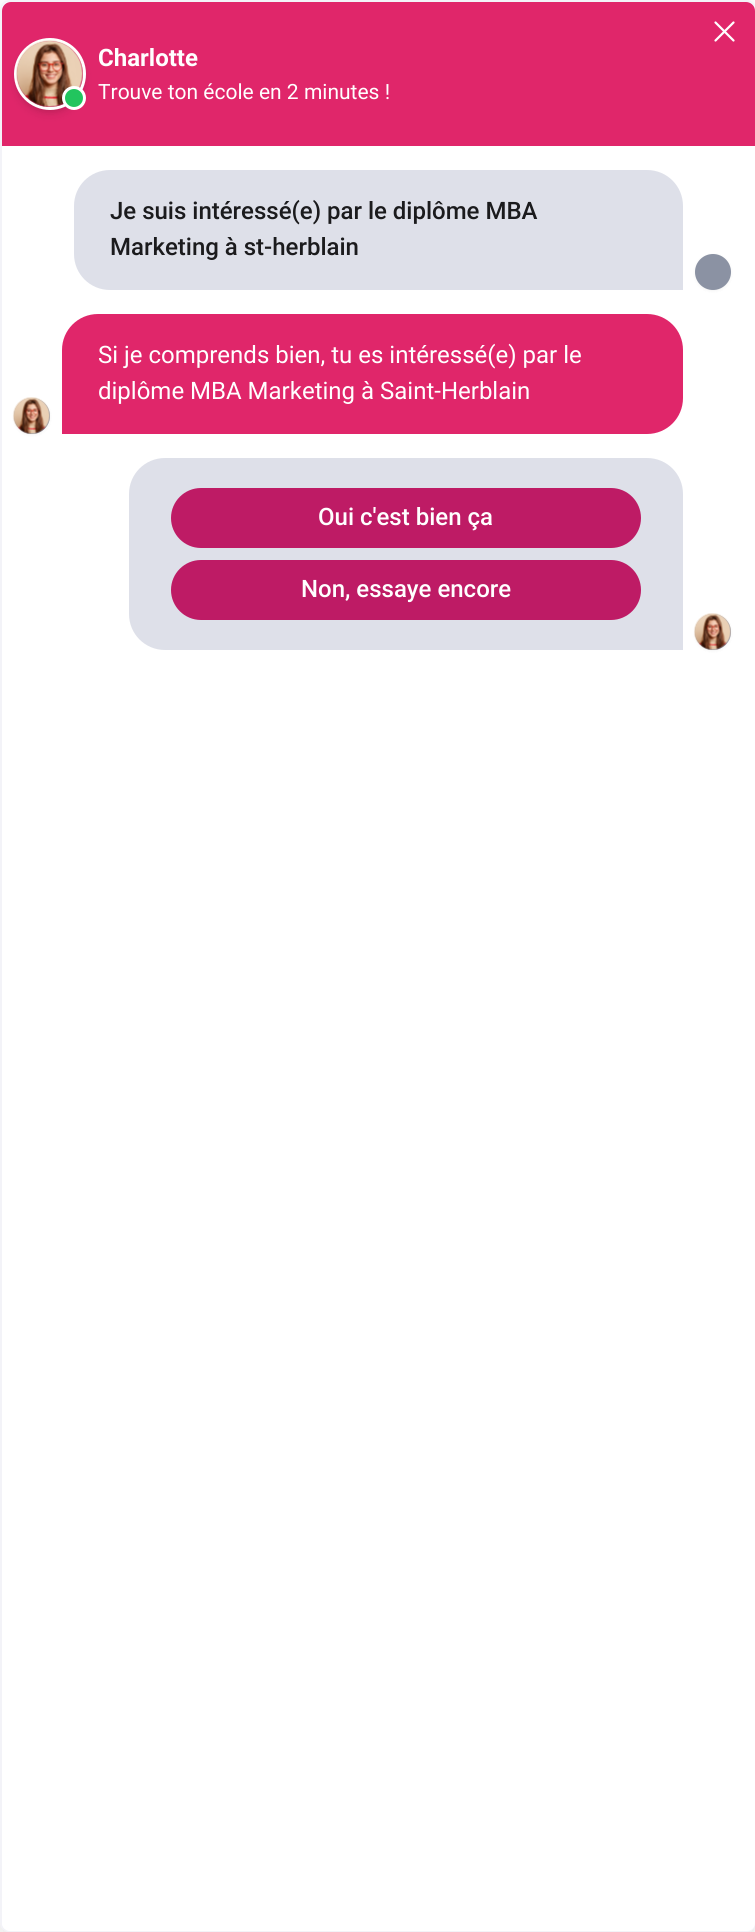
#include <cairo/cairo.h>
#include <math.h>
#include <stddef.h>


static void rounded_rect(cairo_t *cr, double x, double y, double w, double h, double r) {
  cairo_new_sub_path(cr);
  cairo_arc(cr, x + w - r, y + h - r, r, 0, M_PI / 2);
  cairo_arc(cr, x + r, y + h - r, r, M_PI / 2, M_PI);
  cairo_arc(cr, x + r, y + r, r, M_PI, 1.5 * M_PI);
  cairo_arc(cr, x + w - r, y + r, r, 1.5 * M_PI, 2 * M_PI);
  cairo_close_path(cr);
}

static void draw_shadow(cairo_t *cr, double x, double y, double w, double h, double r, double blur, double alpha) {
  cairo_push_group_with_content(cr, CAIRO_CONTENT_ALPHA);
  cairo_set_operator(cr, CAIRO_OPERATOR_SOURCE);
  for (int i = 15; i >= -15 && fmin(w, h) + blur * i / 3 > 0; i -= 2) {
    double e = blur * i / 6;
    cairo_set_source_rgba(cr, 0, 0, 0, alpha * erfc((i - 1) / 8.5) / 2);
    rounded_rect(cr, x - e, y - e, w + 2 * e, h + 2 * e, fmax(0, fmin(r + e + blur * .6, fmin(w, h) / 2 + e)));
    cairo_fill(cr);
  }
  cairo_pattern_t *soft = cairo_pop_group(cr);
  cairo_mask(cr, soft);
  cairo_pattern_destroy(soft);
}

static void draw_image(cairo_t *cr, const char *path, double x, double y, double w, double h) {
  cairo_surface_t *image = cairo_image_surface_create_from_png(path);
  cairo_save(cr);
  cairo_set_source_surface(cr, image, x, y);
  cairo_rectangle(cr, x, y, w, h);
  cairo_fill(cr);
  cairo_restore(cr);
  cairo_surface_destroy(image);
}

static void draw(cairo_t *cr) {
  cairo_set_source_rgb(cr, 250 / 255.0, 250 / 255.0, 250 / 255.0);
  cairo_paint(cr);
  cairo_set_source_rgb(cr, 0, 0, 0);
  draw_shadow(cr, 5, 20, 747, 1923, 5, 11, 0.1);
  cairo_set_source_rgb(cr, 1, 1, 1);
  rounded_rect(cr, 1, 1, 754, 1930, 8);
  cairo_fill_preserve(cr);
  cairo_set_source_rgb(cr, 243 / 255.0, 243 / 255.0, 248 / 255.0);
  cairo_stroke(cr);
  cairo_set_source_rgb(cr, 1, 1, 1);
  rounded_rect(cr, 2, 2, 753, 1929, 8);
  cairo_fill(cr);
  cairo_save(cr);
  rounded_rect(cr, 2, 2, 753, 1929, 8);
  cairo_clip(cr);
  cairo_set_source_rgb(cr, 224 / 255.0, 38 / 255.0, 106 / 255.0);
  cairo_new_path(cr);
  cairo_move_to(cr, 11, 2);
  cairo_line_to(cr, 746, 2);
  cairo_curve_to(cr, 751, 2, 755, 6, 755, 11);
  cairo_line_to(cr, 755, 146);
  cairo_line_to(cr, 2, 146);
  cairo_line_to(cr, 2, 11);
  cairo_curve_to(cr, 2, 6, 6, 2, 11, 2);
  cairo_close_path(cr);
  cairo_fill(cr);
  cairo_restore(cr);
  cairo_set_source_rgb(cr, 0, 0, 0);
  draw_shadow(cr, 17, 44, 66, 66, 33, 3, 0.1);
  draw_shadow(cr, 15, 45, 69, 69, 34.5, 4.5, 0.1);
  cairo_arc(cr, 50, 74, 34.5, 0, 2 * M_PI);
  cairo_set_source_rgb(cr, 1, 1, 1);
  cairo_set_line_width(cr, 3);
  cairo_stroke(cr);
  draw_image(cr, "images/1.png", 16, 40, 67, 67);
  cairo_set_source_rgb(cr, 34 / 255.0, 197 / 255.0, 94 / 255.0);
  cairo_arc(cr, 74, 98, 10.5, 0, 2 * M_PI);
  cairo_fill_preserve(cr);
  cairo_set_source_rgb(cr, 1, 1, 1);
  cairo_stroke(cr);
  cairo_new_path(cr);
  cairo_move_to(cr, 715.5, 40.5);
  cairo_line_to(cr, 733.5, 22.5);
  cairo_move_to(cr, 715.5, 22.5);
  cairo_line_to(cr, 733.5, 40.5);
  cairo_set_line_width(cr, 2.2);
  cairo_set_line_cap(cr, CAIRO_LINE_CAP_ROUND);
  cairo_set_line_join(cr, CAIRO_LINE_JOIN_ROUND);
  cairo_stroke(cr);
  cairo_set_source_rgb(cr, 222 / 255.0, 224 / 255.0, 233 / 255.0);
  cairo_new_path(cr);
  cairo_move_to(cr, 110, 170);
  cairo_line_to(cr, 647, 170);
  cairo_curve_to(cr, 667, 170, 683, 186, 683, 206);
  cairo_line_to(cr, 683, 290);
  cairo_line_to(cr, 110, 290);
  cairo_curve_to(cr, 90, 290, 74, 274, 74, 254);
  cairo_line_to(cr, 74, 206);
  cairo_curve_to(cr, 74, 186, 90, 170, 110, 170);
  cairo_close_path(cr);
  cairo_fill(cr);
  cairo_set_source_rgb(cr, 0, 0, 0);
  draw_shadow(cr, 695, 255, 36, 36, 18, 1.5, 0.05);
  cairo_set_source_rgb(cr, 139 / 255.0, 146 / 255.0, 163 / 255.0);
  cairo_arc(cr, 713, 272, 18, 0, 2 * M_PI);
  cairo_fill(cr);
  cairo_set_source_rgb(cr, 224 / 255.0, 38 / 255.0, 106 / 255.0);
  cairo_new_path(cr);
  cairo_move_to(cr, 98, 314);
  cairo_line_to(cr, 647, 314);
  cairo_curve_to(cr, 667, 314, 683, 330, 683, 350);
  cairo_line_to(cr, 683, 398);
  cairo_curve_to(cr, 683, 418, 667, 434, 647, 434);
  cairo_line_to(cr, 62, 434);
  cairo_line_to(cr, 62, 350);
  cairo_curve_to(cr, 62, 330, 78, 314, 98, 314);
  cairo_close_path(cr);
  cairo_fill(cr);
  cairo_set_source_rgb(cr, 0, 0, 0);
  draw_shadow(cr, 14, 399, 36, 36, 18, 1.5, 0.05);
  cairo_set_source_rgb(cr, 139 / 255.0, 146 / 255.0, 163 / 255.0);
  cairo_arc(cr, 32, 416, 18, 0, 2 * M_PI);
  cairo_fill(cr);
  draw_image(cr, "images/2.png", 13, 397, 37, 37);
  cairo_set_source_rgb(cr, 222 / 255.0, 224 / 255.0, 233 / 255.0);
  cairo_new_path(cr);
  cairo_move_to(cr, 165, 458);
  cairo_line_to(cr, 647, 458);
  cairo_curve_to(cr, 667, 458, 683, 474, 683, 494);
  cairo_line_to(cr, 683, 650);
  cairo_line_to(cr, 165, 650);
  cairo_curve_to(cr, 145, 650, 129, 634, 129, 614);
  cairo_line_to(cr, 129, 494);
  cairo_curve_to(cr, 129, 474, 145, 458, 165, 458);
  cairo_close_path(cr);
  cairo_fill(cr);
  cairo_set_source_rgb(cr, 190 / 255.0, 27 / 255.0, 101 / 255.0);
  rounded_rect(cr, 171, 488, 470, 60, 30);
  cairo_fill(cr);
  rounded_rect(cr, 171, 560, 470, 60, 30);
  cairo_fill(cr);
  cairo_set_source_rgb(cr, 0, 0, 0);
  draw_shadow(cr, 695, 615, 36, 36, 18, 1.5, 0.05);
  cairo_set_source_rgb(cr, 139 / 255.0, 146 / 255.0, 163 / 255.0);
  cairo_arc(cr, 713, 632, 18, 0, 2 * M_PI);
  cairo_fill(cr);
  draw_image(cr, "images/3.png", 694, 613, 37, 37);
  cairo_select_font_face(cr, "Roboto", CAIRO_FONT_SLANT_NORMAL, CAIRO_FONT_WEIGHT_BOLD);
  cairo_set_font_size(cr, 24);
  cairo_set_source_rgb(cr, 1, 1, 1);
  cairo_move_to(cr, 98, 66);
  cairo_show_text(cr, "Charlotte");
  cairo_select_font_face(cr, "Roboto", CAIRO_FONT_SLANT_NORMAL, CAIRO_FONT_WEIGHT_NORMAL);
  cairo_set_font_size(cr, 21);
  cairo_move_to(cr, 98, 99);
  cairo_show_text(cr, "Trouve ton école en 2 minutes !");
  cairo_select_font_face(cr, "Roboto Medium", CAIRO_FONT_SLANT_NORMAL, CAIRO_FONT_WEIGHT_NORMAL);
  cairo_set_font_size(cr, 24);
  cairo_set_source_rgb(cr, 27 / 255.0, 27 / 255.0, 29 / 255.0);
  cairo_move_to(cr, 110, 219);
  cairo_show_text(cr, "Je suis intéressé(e) par le diplôme MBA");
  cairo_move_to(cr, 110, 255);
  cairo_show_text(cr, "Marketing à st-herblain");
  cairo_select_font_face(cr, "Roboto", CAIRO_FONT_SLANT_NORMAL, CAIRO_FONT_WEIGHT_NORMAL);
  cairo_set_source_rgb(cr, 1, 1, 1);
  cairo_move_to(cr, 98, 363);
  cairo_show_text(cr, "Si je comprends bien, tu es intéressé(e) par le");
  cairo_move_to(cr, 98, 399);
  cairo_show_text(cr, "diplôme MBA Marketing à Saint-Herblain");
  cairo_select_font_face(cr, "Roboto Medium", CAIRO_FONT_SLANT_NORMAL, CAIRO_FONT_WEIGHT_NORMAL);
  cairo_move_to(cr, 318, 525);
  cairo_show_text(cr, "Oui c'est bien ça");
  cairo_move_to(cr, 301, 597);
  cairo_show_text(cr, "Non, essaye encore");
}

int main(void) {
  cairo_surface_t *surface = cairo_image_surface_create(CAIRO_FORMAT_RGB24, 755, 1932);
  cairo_t *cr = cairo_create(surface);
  cairo_font_options_t *options = cairo_font_options_create();
  cairo_font_options_set_hint_metrics(options, CAIRO_HINT_METRICS_OFF);
  cairo_font_options_set_hint_style(options, CAIRO_HINT_STYLE_NONE);
  cairo_set_font_options(cr, options);
  cairo_set_miter_limit(cr, 4);
  draw(cr);
  cairo_surface_write_to_png(surface, "out.png");
  cairo_font_options_destroy(options);
  cairo_destroy(cr);
  cairo_surface_destroy(surface);
  return 0;
}
